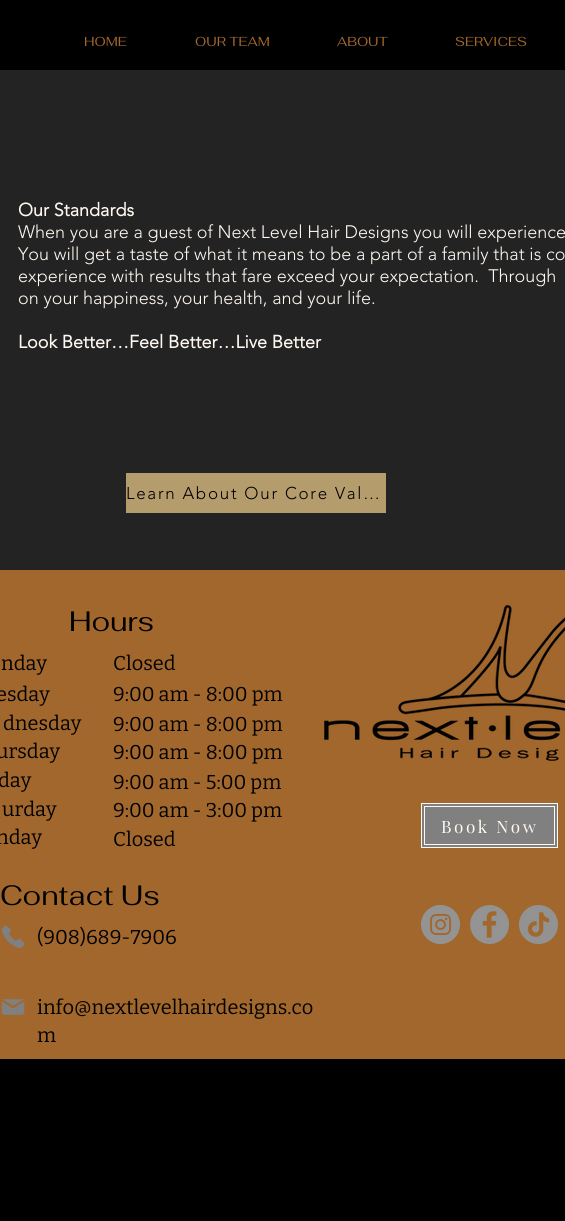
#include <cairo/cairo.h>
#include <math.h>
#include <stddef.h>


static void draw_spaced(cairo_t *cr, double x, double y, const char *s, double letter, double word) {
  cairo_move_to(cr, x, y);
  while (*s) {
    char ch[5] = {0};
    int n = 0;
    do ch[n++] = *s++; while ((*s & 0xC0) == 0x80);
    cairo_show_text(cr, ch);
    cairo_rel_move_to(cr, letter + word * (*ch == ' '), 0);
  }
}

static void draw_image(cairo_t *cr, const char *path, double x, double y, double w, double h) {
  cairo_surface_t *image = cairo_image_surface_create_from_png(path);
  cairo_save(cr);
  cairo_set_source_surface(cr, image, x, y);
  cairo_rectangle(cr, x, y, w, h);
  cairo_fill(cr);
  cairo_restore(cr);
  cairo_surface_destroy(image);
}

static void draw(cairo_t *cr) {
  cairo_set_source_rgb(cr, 0, 0, 0);
  cairo_paint(cr);
  cairo_set_source_rgb(cr, 35 / 255.0, 35 / 255.0, 35 / 255.0);
  cairo_rectangle(cr, 0, 70, 565, 500);
  cairo_fill(cr);
  cairo_set_source_rgb(cr, 181 / 255.0, 156 / 255.0, 109 / 255.0);
  cairo_rectangle(cr, 126, 473, 260, 40);
  cairo_fill(cr);
  cairo_set_source_rgb(cr, 162 / 255.0, 103 / 255.0, 45 / 255.0);
  cairo_rectangle(cr, 0, 570, 565, 489);
  cairo_fill(cr);
  draw_image(cr, "images/1.png", 324, 604, 241, 157);
  cairo_set_source_rgb(cr, 128 / 255.0, 128 / 255.0, 128 / 255.0);
  cairo_rectangle(cr, 421.5, 803.5, 136, 44);
  cairo_fill_preserve(cr);
  cairo_set_source_rgb(cr, 1, 248 / 255.0, 241 / 255.0);
  cairo_set_line_width(cr, 1);
  cairo_stroke(cr);
  cairo_rectangle(cr, 424.5, 806.5, 130, 38);
  cairo_stroke(cr);
  draw_image(cr, "images/2.png", 1, 925, 24, 24);
  draw_image(cr, "images/3.png", 1, 999, 24, 16);
  draw_image(cr, "images/4.png", 421, 905, 39, 39);
  draw_image(cr, "images/5.png", 470, 905, 39, 39);
  draw_image(cr, "images/6.png", 519, 905, 39, 39);
  cairo_select_font_face(cr, "Fahkwang", CAIRO_FONT_SLANT_NORMAL, CAIRO_FONT_WEIGHT_NORMAL);
  cairo_set_font_size(cr, 13);
  cairo_set_source_rgb(cr, 162 / 255.0, 103 / 255.0, 45 / 255.0);
  cairo_move_to(cr, 84, 46);
  cairo_show_text(cr, "HOME");
  cairo_move_to(cr, 195, 46);
  cairo_show_text(cr, "OUR TEAM");
  cairo_move_to(cr, 337, 46);
  cairo_show_text(cr, "ABOUT");
  cairo_move_to(cr, 455, 46);
  cairo_show_text(cr, "SERVICES");
  cairo_select_font_face(cr, "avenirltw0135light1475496", CAIRO_FONT_SLANT_NORMAL, CAIRO_FONT_WEIGHT_BOLD);
  cairo_set_font_size(cr, 18);
  cairo_set_source_rgb(cr, 1, 248 / 255.0, 241 / 255.0);
  cairo_move_to(cr, 18, 216);
  cairo_show_text(cr, "Our Standards");
  cairo_select_font_face(cr, "avenirltw0135light1475496 Light", CAIRO_FONT_SLANT_NORMAL, CAIRO_FONT_WEIGHT_NORMAL);
  cairo_move_to(cr, 18, 238);
  cairo_show_text(cr, "When you are a guest of Next Level Hair Designs you will experience");
  cairo_move_to(cr, 18, 260);
  cairo_show_text(cr, "You will get a taste of what it means to be a part of a family that is co");
  cairo_move_to(cr, 18, 282);
  cairo_show_text(cr, "experience with results that fare exceed your expectation.  Through");
  cairo_move_to(cr, 18, 304);
  cairo_show_text(cr, "on your happiness, your health, and your life.");
  cairo_select_font_face(cr, "avenirltw0135light1475496", CAIRO_FONT_SLANT_NORMAL, CAIRO_FONT_WEIGHT_BOLD);
  cairo_move_to(cr, 18, 348);
  cairo_show_text(cr, "Look Better…Feel Better…Live Better");
  cairo_select_font_face(cr, "avenirltw0135light1475496 Light", CAIRO_FONT_SLANT_NORMAL, CAIRO_FONT_WEIGHT_NORMAL);
  cairo_set_font_size(cr, 17);
  cairo_set_source_rgb(cr, 0, 0, 0);
  draw_spaced(cr, 126, 499, "Learn About Our Core Val…", 1.7, 0);
  cairo_select_font_face(cr, "Fahkwang", CAIRO_FONT_SLANT_NORMAL, CAIRO_FONT_WEIGHT_NORMAL);
  cairo_set_font_size(cr, 28);
  cairo_move_to(cr, 69, 631);
  cairo_show_text(cr, "Hours");
  cairo_select_font_face(cr, "Bitter", CAIRO_FONT_SLANT_NORMAL, CAIRO_FONT_WEIGHT_NORMAL);
  cairo_set_font_size(cr, 20);
  cairo_move_to(cr, 1, 670);
  cairo_show_text(cr, "nday");
  cairo_move_to(cr, -4, 701);
  cairo_show_text(cr, "esday");
  cairo_move_to(cr, 3, 730);
  cairo_show_text(cr, "dnesday");
  cairo_move_to(cr, -4, 758);
  cairo_show_text(cr, "ursday");
  cairo_move_to(cr, -2, 787);
  cairo_show_text(cr, "day");
  cairo_move_to(cr, 2, 816);
  cairo_show_text(cr, "urday");
  cairo_move_to(cr, -4, 844);
  cairo_show_text(cr, "nday");
  cairo_move_to(cr, 113, 670);
  cairo_show_text(cr, "Closed");
  cairo_move_to(cr, 113, 701);
  cairo_show_text(cr, "9:00 am - 8:00 pm");
  cairo_move_to(cr, 113, 731);
  cairo_show_text(cr, "9:00 am - 8:00 pm");
  cairo_move_to(cr, 113, 759);
  cairo_show_text(cr, "9:00 am - 8:00 pm");
  cairo_move_to(cr, 113, 789);
  cairo_show_text(cr, "9:00 am - 5:00 pm");
  cairo_move_to(cr, 113, 817);
  cairo_show_text(cr, "9:00 am - 3:00 pm");
  cairo_move_to(cr, 113, 846);
  cairo_show_text(cr, "Closed");
  cairo_select_font_face(cr, "Playfair Display", CAIRO_FONT_SLANT_NORMAL, CAIRO_FONT_WEIGHT_NORMAL);
  cairo_set_font_size(cr, 17);
  cairo_set_source_rgb(cr, 1, 248 / 255.0, 241 / 255.0);
  draw_spaced(cr, 441, 833, "Book Now", 2.5, 0);
  cairo_select_font_face(cr, "Fahkwang", CAIRO_FONT_SLANT_NORMAL, CAIRO_FONT_WEIGHT_NORMAL);
  cairo_set_font_size(cr, 28);
  cairo_set_source_rgb(cr, 0, 0, 0);
  cairo_move_to(cr, 0, 905);
  cairo_show_text(cr, "Contact Us");
  cairo_select_font_face(cr, "Bitter", CAIRO_FONT_SLANT_NORMAL, CAIRO_FONT_WEIGHT_NORMAL);
  cairo_set_font_size(cr, 20);
  cairo_move_to(cr, 37, 944);
  cairo_show_text(cr, "(908)689-7906");
  cairo_move_to(cr, 37, 1014);
  cairo_show_text(cr, "info@nextlevelhairdesigns.co");
  cairo_move_to(cr, 37, 1042);
  cairo_show_text(cr, "m");
}

int main(void) {
  cairo_surface_t *surface = cairo_image_surface_create(CAIRO_FORMAT_RGB24, 565, 1221);
  cairo_t *cr = cairo_create(surface);
  cairo_font_options_t *options = cairo_font_options_create();
  cairo_font_options_set_hint_metrics(options, CAIRO_HINT_METRICS_OFF);
  cairo_font_options_set_hint_style(options, CAIRO_HINT_STYLE_NONE);
  cairo_set_font_options(cr, options);
  cairo_set_miter_limit(cr, 4);
  draw(cr);
  cairo_surface_write_to_png(surface, "out.png");
  cairo_font_options_destroy(options);
  cairo_destroy(cr);
  cairo_surface_destroy(surface);
  return 0;
}
